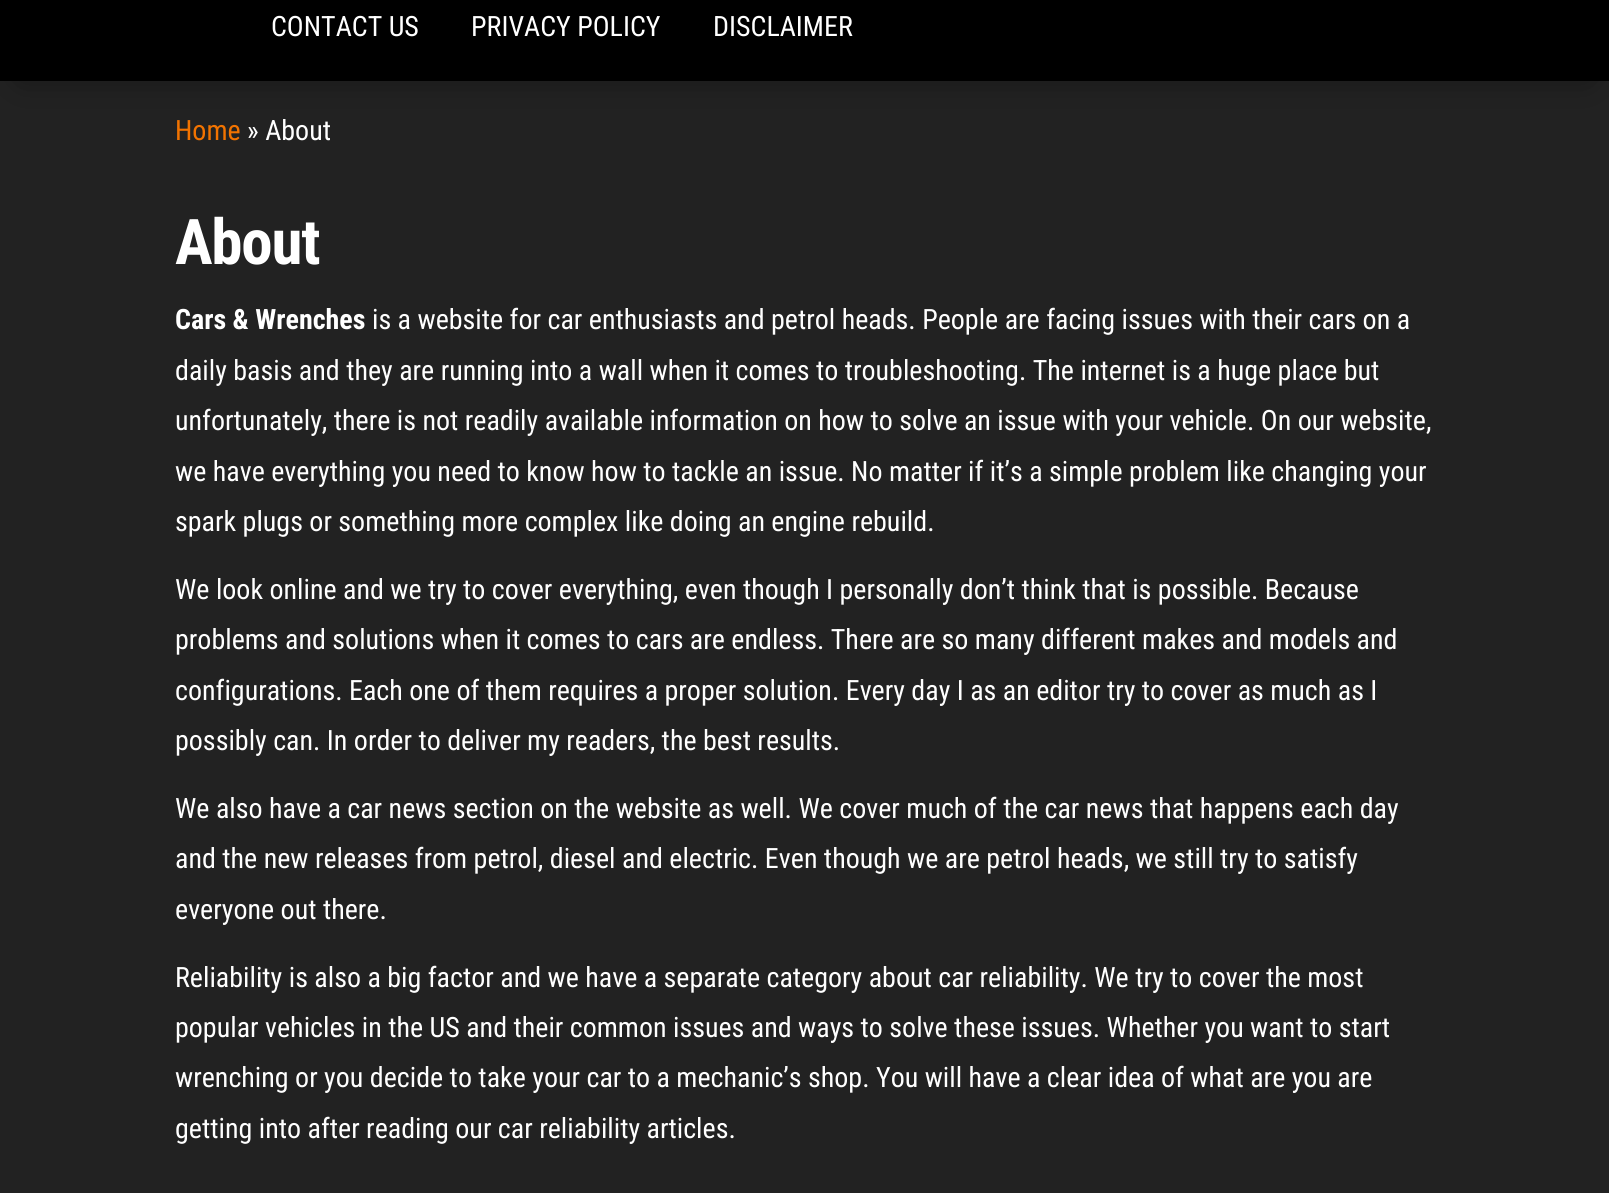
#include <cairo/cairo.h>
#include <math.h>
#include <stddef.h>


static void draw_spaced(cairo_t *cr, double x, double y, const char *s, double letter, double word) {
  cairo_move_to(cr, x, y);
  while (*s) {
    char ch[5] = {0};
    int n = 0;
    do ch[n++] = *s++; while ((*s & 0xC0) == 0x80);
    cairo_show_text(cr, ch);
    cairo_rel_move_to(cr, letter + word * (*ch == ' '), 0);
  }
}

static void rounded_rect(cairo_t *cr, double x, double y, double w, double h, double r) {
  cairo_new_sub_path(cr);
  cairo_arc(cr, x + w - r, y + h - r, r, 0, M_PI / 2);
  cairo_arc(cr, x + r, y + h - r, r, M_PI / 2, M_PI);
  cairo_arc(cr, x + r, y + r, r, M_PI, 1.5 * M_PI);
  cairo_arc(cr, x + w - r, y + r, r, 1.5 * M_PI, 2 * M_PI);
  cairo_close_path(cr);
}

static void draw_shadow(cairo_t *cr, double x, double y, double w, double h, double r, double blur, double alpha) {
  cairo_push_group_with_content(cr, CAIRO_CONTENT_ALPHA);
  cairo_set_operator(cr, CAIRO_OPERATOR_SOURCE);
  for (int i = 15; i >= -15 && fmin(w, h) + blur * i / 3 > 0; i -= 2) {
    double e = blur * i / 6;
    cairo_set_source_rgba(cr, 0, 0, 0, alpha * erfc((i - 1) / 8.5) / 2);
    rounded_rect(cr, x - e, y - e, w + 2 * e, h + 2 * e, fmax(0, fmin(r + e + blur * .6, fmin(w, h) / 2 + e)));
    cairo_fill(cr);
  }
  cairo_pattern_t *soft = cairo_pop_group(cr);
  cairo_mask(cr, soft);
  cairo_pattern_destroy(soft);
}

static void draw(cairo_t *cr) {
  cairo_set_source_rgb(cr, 34 / 255.0, 34 / 255.0, 34 / 255.0);
  cairo_paint(cr);
  cairo_set_source_rgb(cr, 0, 0, 0);
  draw_shadow(cr, 21, -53, 1568, 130, 0, 17.5, 0.42);
  cairo_set_source_rgb(cr, 0, 0, 0);
  cairo_rectangle(cr, 0, 0, 1609, 81);
  cairo_fill(cr);
  cairo_select_font_face(cr, "Roboto Condensed", CAIRO_FONT_SLANT_NORMAL, CAIRO_FONT_WEIGHT_NORMAL);
  cairo_set_font_size(cr, 28);
  cairo_set_source_rgb(cr, 1, 1, 1);
  cairo_move_to(cr, 271, 36);
  cairo_show_text(cr, "CONTACT US");
  cairo_move_to(cr, 471, 36);
  cairo_show_text(cr, "PRIVACY POLICY");
  cairo_move_to(cr, 713, 36);
  cairo_show_text(cr, "DISCLAIMER");
  cairo_set_source_rgb(cr, 242 / 255.0, 115 / 255.0, 0);
  cairo_move_to(cr, 175, 140);
  cairo_show_text(cr, "Home");
  cairo_set_source_rgb(cr, 1, 1, 1);
  cairo_move_to(cr, 247, 140);
  cairo_show_text(cr, "» About");
  cairo_select_font_face(cr, "Roboto Condensed", CAIRO_FONT_SLANT_NORMAL, CAIRO_FONT_WEIGHT_BOLD);
  cairo_set_font_size(cr, 63);
  draw_spaced(cr, 175, 264, "About", -1.25, 0);
  cairo_set_font_size(cr, 28);
  cairo_move_to(cr, 175, 329);
  cairo_show_text(cr, "Cars & Wrenches");
  cairo_select_font_face(cr, "Roboto Condensed", CAIRO_FONT_SLANT_NORMAL, CAIRO_FONT_WEIGHT_NORMAL);
  cairo_move_to(cr, 372, 329);
  cairo_show_text(cr, "is a website for car enthusiasts and petrol heads. People are facing issues with their cars on a");
  cairo_move_to(cr, 175, 380);
  cairo_show_text(cr, "daily basis and they are running into a wall when it comes to troubleshooting. The internet is a huge place but");
  cairo_move_to(cr, 175, 430);
  cairo_show_text(cr, "unfortunately, there is not readily available information on how to solve an issue with your vehicle. On our website,");
  cairo_move_to(cr, 175, 481);
  cairo_show_text(cr, "we have everything you need to know how to tackle an issue. No matter if it’s a simple problem like changing your");
  cairo_move_to(cr, 175, 531);
  cairo_show_text(cr, "spark plugs or something more complex like doing an engine rebuild.");
  cairo_move_to(cr, 175, 599);
  cairo_show_text(cr, "We look online and we try to cover everything, even though I personally don’t think that is possible. Because");
  cairo_move_to(cr, 175, 649);
  cairo_show_text(cr, "problems and solutions when it comes to cars are endless. There are so many different makes and models and");
  cairo_move_to(cr, 175, 700);
  cairo_show_text(cr, "configurations. Each one of them requires a proper solution. Every day I as an editor try to cover as much as I");
  cairo_move_to(cr, 175, 750);
  cairo_show_text(cr, "possibly can. In order to deliver my readers, the best results.");
  cairo_move_to(cr, 175, 818);
  cairo_show_text(cr, "We also have a car news section on the website as well. We cover much of the car news that happens each day");
  cairo_move_to(cr, 175, 868);
  cairo_show_text(cr, "and the new releases from petrol, diesel and electric. Even though we are petrol heads, we still try to satisfy");
  cairo_move_to(cr, 175, 919);
  cairo_show_text(cr, "everyone out there.");
  cairo_move_to(cr, 175, 987);
  cairo_show_text(cr, "Reliability is also a big factor and we have a separate category about car reliability. We try to cover the most");
  cairo_move_to(cr, 175, 1037);
  cairo_show_text(cr, "popular vehicles in the US and their common issues and ways to solve these issues. Whether you want to start");
  cairo_move_to(cr, 175, 1087);
  cairo_show_text(cr, "wrenching or you decide to take your car to a mechanic’s shop. You will have a clear idea of what are you are");
  cairo_move_to(cr, 175, 1138);
  cairo_show_text(cr, "getting into after reading our car reliability articles.");
}

int main(void) {
  cairo_surface_t *surface = cairo_image_surface_create(CAIRO_FORMAT_RGB24, 1609, 1193);
  cairo_t *cr = cairo_create(surface);
  cairo_font_options_t *options = cairo_font_options_create();
  cairo_font_options_set_hint_metrics(options, CAIRO_HINT_METRICS_OFF);
  cairo_font_options_set_hint_style(options, CAIRO_HINT_STYLE_NONE);
  cairo_set_font_options(cr, options);
  cairo_set_miter_limit(cr, 4);
  draw(cr);
  cairo_surface_write_to_png(surface, "out.png");
  cairo_font_options_destroy(options);
  cairo_destroy(cr);
  cairo_surface_destroy(surface);
  return 0;
}
